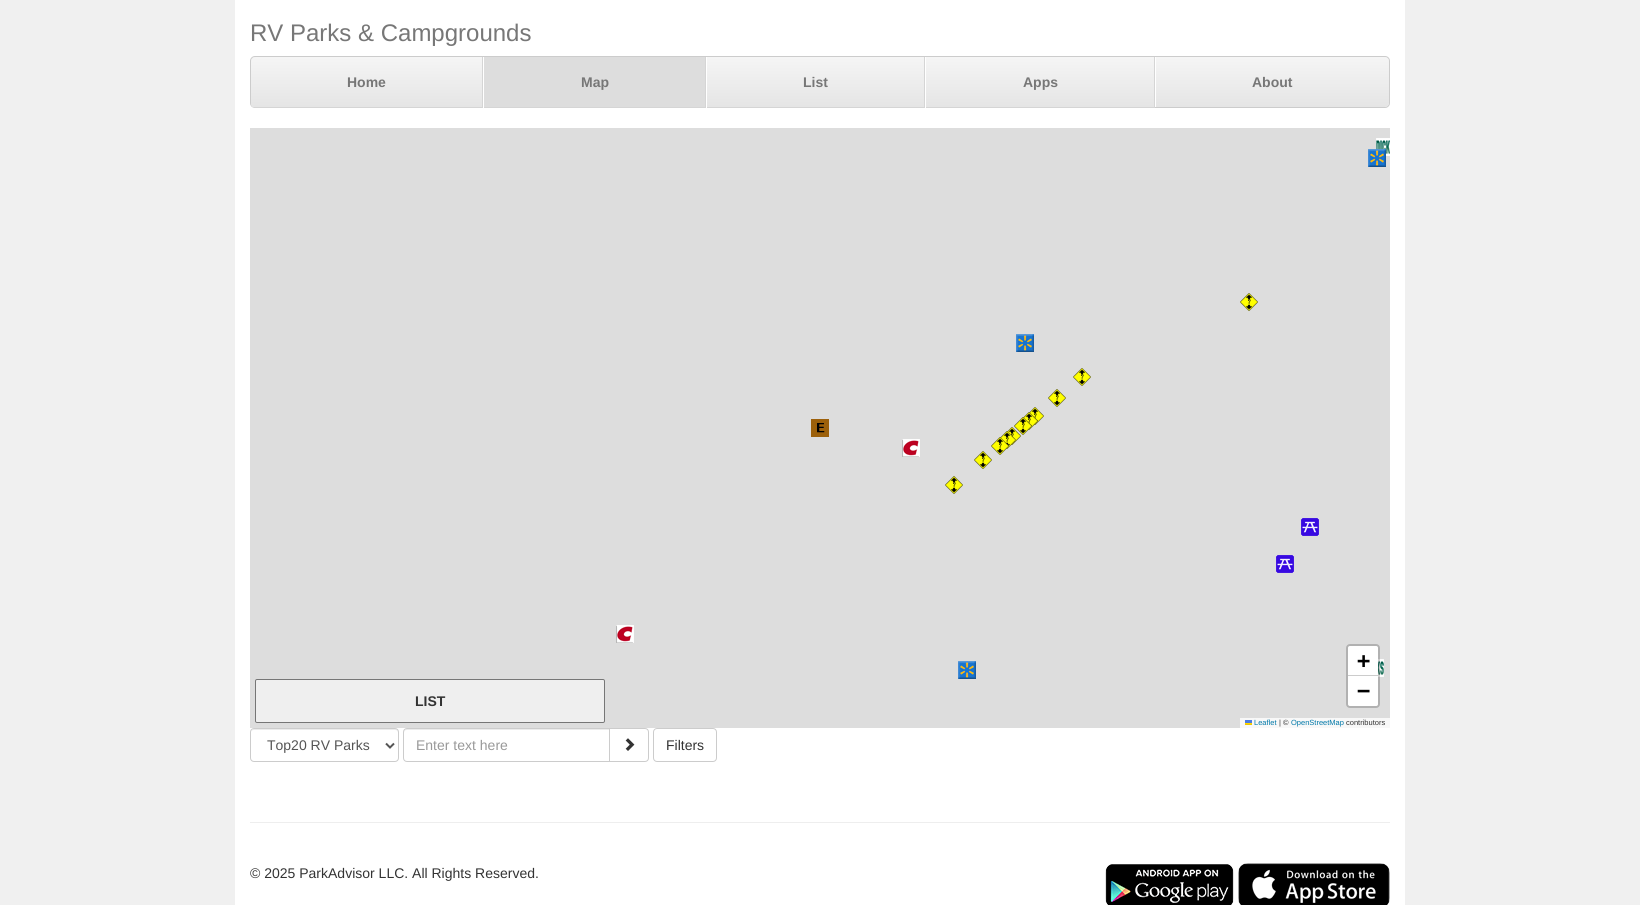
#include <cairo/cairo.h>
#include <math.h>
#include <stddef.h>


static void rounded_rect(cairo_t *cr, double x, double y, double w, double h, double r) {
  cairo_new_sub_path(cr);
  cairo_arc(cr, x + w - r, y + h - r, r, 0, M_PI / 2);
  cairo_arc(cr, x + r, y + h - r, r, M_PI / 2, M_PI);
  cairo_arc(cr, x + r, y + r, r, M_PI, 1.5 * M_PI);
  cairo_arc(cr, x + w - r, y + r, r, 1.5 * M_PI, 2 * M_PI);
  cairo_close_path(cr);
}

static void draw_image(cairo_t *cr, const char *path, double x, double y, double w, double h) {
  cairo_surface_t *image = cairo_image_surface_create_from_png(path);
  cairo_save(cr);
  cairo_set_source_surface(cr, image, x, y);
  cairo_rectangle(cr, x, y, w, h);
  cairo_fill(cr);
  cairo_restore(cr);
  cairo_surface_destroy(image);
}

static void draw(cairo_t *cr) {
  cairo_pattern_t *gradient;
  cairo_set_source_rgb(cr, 240 / 255.0, 240 / 255.0, 240 / 255.0);
  cairo_paint(cr);
  cairo_set_source_rgb(cr, 1, 1, 1);
  cairo_rectangle(cr, 235, 0, 1170, 905);
  cairo_fill(cr);
  cairo_set_source_rgb(cr, 238 / 255.0, 238 / 255.0, 238 / 255.0);
  rounded_rect(cr, 250.5, 56.5, 1139, 51, 4.5);
  cairo_fill_preserve(cr);
  cairo_set_source_rgb(cr, 204 / 255.0, 204 / 255.0, 204 / 255.0);
  cairo_set_line_width(cr, 1);
  cairo_stroke(cr);
  cairo_set_source_rgb(cr, 229 / 255.0, 229 / 255.0, 229 / 255.0);
  cairo_new_path(cr);
  cairo_move_to(cr, 256, 57);
  cairo_line_to(cr, 483, 57);
  cairo_line_to(cr, 483, 108);
  cairo_line_to(cr, 256, 108);
  cairo_curve_to(cr, 253, 108, 251, 106, 251, 103);
  cairo_line_to(cr, 251, 62);
  cairo_curve_to(cr, 251, 59, 253, 57, 256, 57);
  cairo_close_path(cr);
  cairo_fill(cr);
  cairo_save(cr);
  cairo_new_path(cr);
  cairo_move_to(cr, 256, 57);
  cairo_line_to(cr, 483, 57);
  cairo_line_to(cr, 483, 108);
  cairo_line_to(cr, 256, 108);
  cairo_curve_to(cr, 253, 108, 251, 106, 251, 103);
  cairo_line_to(cr, 251, 62);
  cairo_curve_to(cr, 251, 59, 253, 57, 256, 57);
  cairo_close_path(cr);
  cairo_clip(cr);
  gradient = cairo_pattern_create_linear(367, 57, 367, 107);
  cairo_pattern_add_color_stop_rgba(gradient, 0, 245 / 255.0, 245 / 255.0, 245 / 255.0, 1);
  cairo_pattern_add_color_stop_rgba(gradient, 1, 229 / 255.0, 229 / 255.0, 229 / 255.0, 1);
  cairo_set_source(cr, gradient);
  cairo_pattern_destroy(gradient);
  cairo_new_path(cr);
  cairo_move_to(cr, 256, 57);
  cairo_line_to(cr, 483, 57);
  cairo_line_to(cr, 483, 107);
  cairo_line_to(cr, 251, 107);
  cairo_line_to(cr, 251, 62);
  cairo_curve_to(cr, 251, 59, 253, 57, 256, 57);
  cairo_close_path(cr);
  cairo_fill(cr);
  cairo_restore(cr);
  cairo_set_source_rgb(cr, 213 / 255.0, 213 / 255.0, 213 / 255.0);
  cairo_rectangle(cr, 482, 57, 1, 51);
  cairo_fill(cr);
  cairo_rectangle(cr, 254, 107, 229, 1);
  cairo_fill(cr);
  cairo_set_source_rgb(cr, 221 / 255.0, 221 / 255.0, 221 / 255.0);
  cairo_rectangle(cr, 484, 57, 221, 50);
  cairo_fill(cr);
  cairo_set_source_rgb(cr, 213 / 255.0, 213 / 255.0, 213 / 255.0);
  cairo_rectangle(cr, 705, 57, 1, 51);
  cairo_fill(cr);
  cairo_rectangle(cr, 483, 107, 223, 1);
  cairo_fill(cr);
  cairo_set_source_rgb(cr, 1, 1, 1);
  cairo_rectangle(cr, 483, 57, 1, 51);
  cairo_fill(cr);
  gradient = cairo_pattern_create_linear(816, 57, 816, 107);
  cairo_pattern_add_color_stop_rgba(gradient, 0, 245 / 255.0, 245 / 255.0, 245 / 255.0, 1);
  cairo_pattern_add_color_stop_rgba(gradient, 1, 229 / 255.0, 229 / 255.0, 229 / 255.0, 1);
  cairo_set_source(cr, gradient);
  cairo_pattern_destroy(gradient);
  cairo_rectangle(cr, 707, 57, 217, 50);
  cairo_fill(cr);
  cairo_set_source_rgb(cr, 213 / 255.0, 213 / 255.0, 213 / 255.0);
  cairo_rectangle(cr, 924, 57, 1, 51);
  cairo_fill(cr);
  cairo_rectangle(cr, 706, 107, 219, 1);
  cairo_fill(cr);
  cairo_set_source_rgb(cr, 1, 1, 1);
  cairo_rectangle(cr, 706, 57, 1, 51);
  cairo_fill(cr);
  gradient = cairo_pattern_create_linear(1040, 57, 1040, 107);
  cairo_pattern_add_color_stop_rgba(gradient, 0, 245 / 255.0, 245 / 255.0, 245 / 255.0, 1);
  cairo_pattern_add_color_stop_rgba(gradient, 1, 229 / 255.0, 229 / 255.0, 229 / 255.0, 1);
  cairo_set_source(cr, gradient);
  cairo_pattern_destroy(gradient);
  cairo_rectangle(cr, 926, 57, 228, 50);
  cairo_fill(cr);
  cairo_set_source_rgb(cr, 213 / 255.0, 213 / 255.0, 213 / 255.0);
  cairo_rectangle(cr, 1154, 57, 1, 51);
  cairo_fill(cr);
  cairo_rectangle(cr, 925, 107, 230, 1);
  cairo_fill(cr);
  cairo_set_source_rgb(cr, 1, 1, 1);
  cairo_rectangle(cr, 925, 57, 1, 51);
  cairo_fill(cr);
  gradient = cairo_pattern_create_linear(1273, 57, 1273, 107);
  cairo_pattern_add_color_stop_rgba(gradient, 0, 245 / 255.0, 245 / 255.0, 245 / 255.0, 1);
  cairo_pattern_add_color_stop_rgba(gradient, 1, 229 / 255.0, 229 / 255.0, 229 / 255.0, 1);
  cairo_set_source(cr, gradient);
  cairo_pattern_destroy(gradient);
  cairo_new_path(cr);
  cairo_move_to(cr, 1155, 57);
  cairo_line_to(cr, 1384, 57);
  cairo_curve_to(cr, 1387, 57, 1389, 59, 1389, 62);
  cairo_line_to(cr, 1389, 102);
  cairo_curve_to(cr, 1389, 105, 1387, 107, 1384, 107);
  cairo_line_to(cr, 1155, 107);
  cairo_close_path(cr);
  cairo_fill(cr);
  cairo_set_source_rgb(cr, 1, 1, 1);
  cairo_rectangle(cr, 1155, 57, 1, 50);
  cairo_fill(cr);
  cairo_set_source_rgb(cr, 236 / 255.0, 236 / 255.0, 236 / 255.0);
  cairo_new_path(cr);
  cairo_move_to(cr, 254, 730);
  cairo_line_to(cr, 395, 730);
  cairo_curve_to(cr, 397, 730, 398, 731, 398, 733);
  cairo_curve_to(cr, 398, 731, 398, 730, 396, 729);
  cairo_line_to(cr, 278, 729);
  cairo_curve_to(cr, 270, 729, 251, 724, 251, 733);
  cairo_curve_to(cr, 251, 731, 252, 730, 254, 730);
  cairo_close_path(cr);
  cairo_fill(cr);
  cairo_set_source_rgb(cr, 221 / 255.0, 221 / 255.0, 221 / 255.0);
  cairo_rectangle(cr, 250, 128, 1140, 600);
  cairo_fill(cr);
  cairo_set_source_rgb(cr, 239 / 255.0, 239 / 255.0, 239 / 255.0);
  rounded_rect(cr, 255.5, 679.5, 349, 43, 1.5);
  cairo_fill_preserve(cr);
  cairo_set_source_rgb(cr, 118 / 255.0, 118 / 255.0, 118 / 255.0);
  cairo_stroke(cr);
  draw_image(cr, "images/1.png", 1376, 138, 14, 18);
  draw_image(cr, "images/2.png", 1368, 149, 18, 18);
  draw_image(cr, "images/3.png", 1240, 293, 18, 18);
  draw_image(cr, "images/4.png", 1016, 334, 18, 18);
  draw_image(cr, "images/3.png", 1073, 368, 18, 18);
  draw_image(cr, "images/3.png", 1048, 389, 18, 18);
  draw_image(cr, "images/3.png", 1026, 407, 18, 18);
  draw_image(cr, "images/5.png", 1020, 412, 18, 18);
  draw_image(cr, "images/6.png", 811, 419, 18, 18);
  draw_image(cr, "images/5.png", 1014, 417, 18, 18);
  draw_image(cr, "images/7.png", 1003, 427, 18, 18);
  draw_image(cr, "images/8.png", 998, 431, 18, 18);
  draw_image(cr, "images/9.png", 902, 439, 18, 18);
  draw_image(cr, "images/10.png", 991, 437, 18, 18);
  draw_image(cr, "images/11.png", 974, 451, 18, 18);
  draw_image(cr, "images/3.png", 945, 476, 18, 18);
  draw_image(cr, "images/12.png", 1301, 518, 18, 18);
  draw_image(cr, "images/12.png", 1276, 555, 18, 18);
  draw_image(cr, "images/9.png", 616, 625, 18, 18);
  draw_image(cr, "images/4.png", 958, 661, 18, 18);
  draw_image(cr, "images/13.png", 1378, 659, 6, 18);
  rounded_rect(cr, 1347, 645, 32, 62, 3);
  cairo_set_source_rgba(cr, 0, 0, 0, 0.2);
  cairo_set_line_width(cr, 2);
  cairo_stroke(cr);
  cairo_set_source_rgb(cr, 1, 1, 1);
  cairo_new_path(cr);
  cairo_move_to(cr, 1350, 646);
  cairo_line_to(cr, 1376, 646);
  cairo_curve_to(cr, 1377, 646, 1378, 647, 1378, 648);
  cairo_line_to(cr, 1378, 676);
  cairo_line_to(cr, 1348, 676);
  cairo_line_to(cr, 1348, 648);
  cairo_curve_to(cr, 1348, 647, 1349, 646, 1350, 646);
  cairo_close_path(cr);
  cairo_fill(cr);
  cairo_set_source_rgb(cr, 204 / 255.0, 204 / 255.0, 204 / 255.0);
  cairo_rectangle(cr, 1348, 675, 30, 1);
  cairo_fill(cr);
  cairo_set_source_rgb(cr, 1, 1, 1);
  cairo_new_path(cr);
  cairo_move_to(cr, 1348, 676);
  cairo_line_to(cr, 1378, 676);
  cairo_line_to(cr, 1378, 704);
  cairo_curve_to(cr, 1378, 705, 1377, 706, 1376, 706);
  cairo_line_to(cr, 1350, 706);
  cairo_curve_to(cr, 1349, 706, 1348, 705, 1348, 704);
  cairo_close_path(cr);
  cairo_fill(cr);
  cairo_set_source_rgb(cr, 248 / 255.0, 248 / 255.0, 248 / 255.0);
  cairo_rectangle(cr, 1240, 718, 150, 10);
  cairo_fill(cr);
  draw_image(cr, "images/14.png", 1245, 720, 7, 5);
  rounded_rect(cr, 250.5, 728.5, 148, 33, 3.5);
  cairo_set_source_rgb(cr, 204 / 255.0, 204 / 255.0, 204 / 255.0);
  cairo_set_line_width(cr, 1);
  cairo_stroke(cr);
  cairo_new_path(cr);
  cairo_move_to(cr, 386, 743.5);
  cairo_line_to(cr, 390, 747.5);
  cairo_line_to(cr, 394, 743.5);
  cairo_set_source_rgb(cr, 85 / 255.0, 85 / 255.0, 85 / 255.0);
  cairo_set_line_width(cr, 2);
  cairo_stroke(cr);
  cairo_set_source_rgb(cr, 236 / 255.0, 236 / 255.0, 236 / 255.0);
  cairo_new_path(cr);
  cairo_move_to(cr, 407, 730);
  cairo_line_to(cr, 609, 730);
  cairo_line_to(cr, 609, 729);
  cairo_line_to(cr, 406, 729);
  cairo_curve_to(cr, 404, 730, 404, 731, 404, 733);
  cairo_curve_to(cr, 404, 731, 405, 730, 407, 730);
  cairo_close_path(cr);
  cairo_fill(cr);
  cairo_new_path(cr);
  cairo_move_to(cr, 407, 728.5);
  cairo_line_to(cr, 609.5, 728.5);
  cairo_line_to(cr, 609.5, 761.5);
  cairo_line_to(cr, 407, 761.5);
  cairo_curve_to(cr, 405, 761.5, 403.5, 760, 403.5, 758);
  cairo_line_to(cr, 403.5, 732);
  cairo_curve_to(cr, 403.5, 730, 405, 728.5, 407, 728.5);
  cairo_close_path(cr);
  cairo_set_source_rgb(cr, 204 / 255.0, 204 / 255.0, 204 / 255.0);
  cairo_set_line_width(cr, 1);
  cairo_stroke(cr);
  cairo_set_source_rgb(cr, 1, 1, 1);
  cairo_new_path(cr);
  cairo_move_to(cr, 609.5, 728.5);
  cairo_line_to(cr, 645, 728.5);
  cairo_curve_to(cr, 647, 728.5, 648.5, 730, 648.5, 732);
  cairo_line_to(cr, 648.5, 758);
  cairo_curve_to(cr, 648.5, 760, 647, 761.5, 645, 761.5);
  cairo_line_to(cr, 609.5, 761.5);
  cairo_close_path(cr);
  cairo_fill_preserve(cr);
  cairo_set_source_rgb(cr, 204 / 255.0, 204 / 255.0, 204 / 255.0);
  cairo_stroke(cr);
  draw_image(cr, "images/15.png", 625, 738, 10, 13);
  rounded_rect(cr, 653.5, 728.5, 63, 33, 3.5);
  cairo_stroke(cr);
  cairo_set_source_rgb(cr, 238 / 255.0, 238 / 255.0, 238 / 255.0);
  cairo_rectangle(cr, 250, 822, 1140, 1);
  cairo_fill(cr);
  draw_image(cr, "images/16.png", 1105, 864, 129, 41);
  draw_image(cr, "images/17.png", 1238, 863, 152, 42);
  cairo_select_font_face(cr, "Liberation Sans", CAIRO_FONT_SLANT_NORMAL, CAIRO_FONT_WEIGHT_NORMAL);
  cairo_set_font_size(cr, 24);
  cairo_set_source_rgb(cr, 119 / 255.0, 119 / 255.0, 119 / 255.0);
  cairo_move_to(cr, 250, 41);
  cairo_show_text(cr, "RV Parks & Campgrounds");
  cairo_select_font_face(cr, "Liberation Sans", CAIRO_FONT_SLANT_NORMAL, CAIRO_FONT_WEIGHT_BOLD);
  cairo_set_font_size(cr, 14);
  cairo_move_to(cr, 347, 87);
  cairo_show_text(cr, "Home");
  cairo_move_to(cr, 581, 87);
  cairo_show_text(cr, "Map");
  cairo_move_to(cr, 803, 87);
  cairo_show_text(cr, "List");
  cairo_move_to(cr, 1023, 87);
  cairo_show_text(cr, "Apps");
  cairo_move_to(cr, 1252, 87);
  cairo_show_text(cr, "About");
  cairo_set_source_rgb(cr, 51 / 255.0, 51 / 255.0, 51 / 255.0);
  cairo_move_to(cr, 415, 706);
  cairo_show_text(cr, "LIST");
  cairo_select_font_face(cr, "DejaVu Sans Mono", CAIRO_FONT_SLANT_NORMAL, CAIRO_FONT_WEIGHT_BOLD);
  cairo_set_font_size(cr, 22);
  cairo_set_source_rgb(cr, 0, 0, 0);
  cairo_move_to(cr, 1357, 668);
  cairo_show_text(cr, "+");
  cairo_move_to(cr, 1357, 698);
  cairo_show_text(cr, "−");
  cairo_select_font_face(cr, "Liberation Sans", CAIRO_FONT_SLANT_NORMAL, CAIRO_FONT_WEIGHT_NORMAL);
  cairo_set_font_size(cr, 7.5);
  cairo_set_source_rgb(cr, 0, 120 / 255.0, 168 / 255.0);
  cairo_move_to(cr, 1254, 725);
  cairo_show_text(cr, "Leaflet");
  cairo_set_source_rgb(cr, 51 / 255.0, 51 / 255.0, 51 / 255.0);
  cairo_move_to(cr, 1279, 725);
  cairo_show_text(cr, "| ©");
  cairo_set_source_rgb(cr, 0, 120 / 255.0, 168 / 255.0);
  cairo_move_to(cr, 1291, 725);
  cairo_show_text(cr, "OpenStreetMap");
  cairo_set_source_rgb(cr, 51 / 255.0, 51 / 255.0, 51 / 255.0);
  cairo_move_to(cr, 1346, 725);
  cairo_show_text(cr, "contributors");
  cairo_set_font_size(cr, 14);
  cairo_set_source_rgb(cr, 85 / 255.0, 85 / 255.0, 85 / 255.0);
  cairo_move_to(cr, 267, 750);
  cairo_show_text(cr, "Top20 RV Parks");
  cairo_set_source_rgb(cr, 153 / 255.0, 153 / 255.0, 153 / 255.0);
  cairo_move_to(cr, 416, 750);
  cairo_show_text(cr, "Enter text here");
  cairo_set_source_rgb(cr, 51 / 255.0, 51 / 255.0, 51 / 255.0);
  cairo_move_to(cr, 666, 750);
  cairo_show_text(cr, "Filters");
  cairo_move_to(cr, 250, 878);
  cairo_show_text(cr, "© 2025 ParkAdvisor LLC. All Rights Reserved.");
}

int main(void) {
  cairo_surface_t *surface = cairo_image_surface_create(CAIRO_FORMAT_RGB24, 1640, 905);
  cairo_t *cr = cairo_create(surface);
  cairo_font_options_t *options = cairo_font_options_create();
  cairo_font_options_set_hint_metrics(options, CAIRO_HINT_METRICS_OFF);
  cairo_font_options_set_hint_style(options, CAIRO_HINT_STYLE_NONE);
  cairo_set_font_options(cr, options);
  cairo_set_miter_limit(cr, 4);
  draw(cr);
  cairo_surface_write_to_png(surface, "out.png");
  cairo_font_options_destroy(options);
  cairo_destroy(cr);
  cairo_surface_destroy(surface);
  return 0;
}
